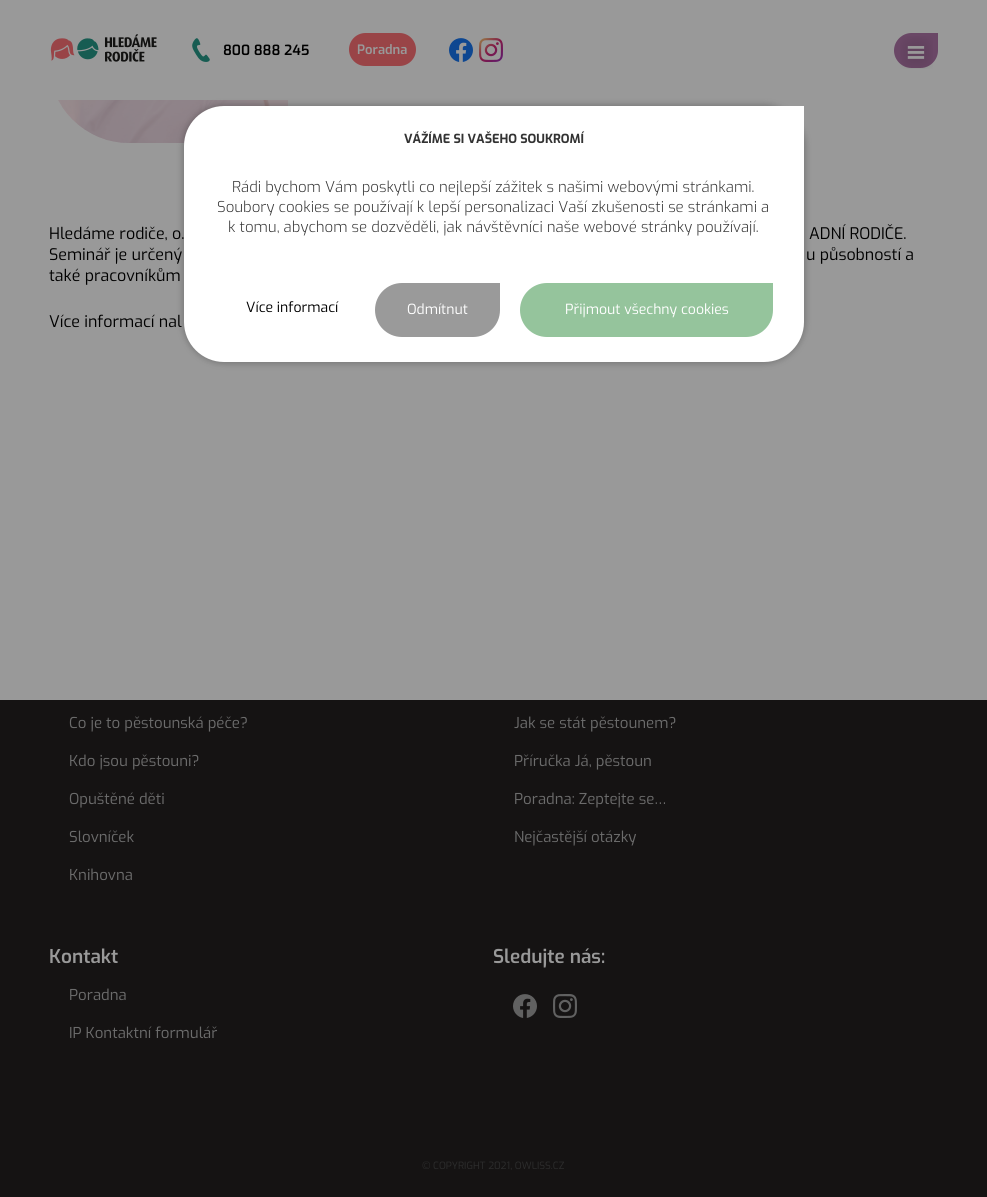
#include <cairo/cairo.h>
#include <math.h>
#include <stddef.h>


static void rounded_rect(cairo_t *cr, double x, double y, double w, double h, double r) {
  cairo_new_sub_path(cr);
  cairo_arc(cr, x + w - r, y + h - r, r, 0, M_PI / 2);
  cairo_arc(cr, x + r, y + h - r, r, M_PI / 2, M_PI);
  cairo_arc(cr, x + r, y + r, r, M_PI, 1.5 * M_PI);
  cairo_arc(cr, x + w - r, y + r, r, 1.5 * M_PI, 2 * M_PI);
  cairo_close_path(cr);
}

static void draw_shadow(cairo_t *cr, double x, double y, double w, double h, double r, double blur, double alpha) {
  cairo_push_group_with_content(cr, CAIRO_CONTENT_ALPHA);
  cairo_set_operator(cr, CAIRO_OPERATOR_SOURCE);
  for (int i = 15; i >= -15 && fmin(w, h) + blur * i / 3 > 0; i -= 2) {
    double e = blur * i / 6;
    cairo_set_source_rgba(cr, 0, 0, 0, alpha * erfc((i - 1) / 8.5) / 2);
    rounded_rect(cr, x - e, y - e, w + 2 * e, h + 2 * e, fmax(0, fmin(r + e + blur * .6, fmin(w, h) / 2 + e)));
    cairo_fill(cr);
  }
  cairo_pattern_t *soft = cairo_pop_group(cr);
  cairo_mask(cr, soft);
  cairo_pattern_destroy(soft);
}

static void draw_image(cairo_t *cr, const char *path, double x, double y, double w, double h) {
  cairo_surface_t *image = cairo_image_surface_create_from_png(path);
  cairo_save(cr);
  cairo_set_source_surface(cr, image, x, y);
  cairo_rectangle(cr, x, y, w, h);
  cairo_fill(cr);
  cairo_restore(cr);
  cairo_surface_destroy(image);
}

static void draw(cairo_t *cr) {
  cairo_set_source_rgb(cr, 21 / 255.0, 19 / 255.0, 19 / 255.0);
  cairo_paint(cr);
  cairo_set_source_rgb(cr, 153 / 255.0, 153 / 255.0, 153 / 255.0);
  cairo_rectangle(cr, 0, 100, 987, 600);
  cairo_fill(cr);
  cairo_new_path(cr);
  cairo_move_to(cr, 341, -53);
  cairo_line_to(cr, 938, -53);
  cairo_line_to(cr, 938, 90);
  cairo_curve_to(cr, 938, 119.5, 914.5, 143, 885, 143);
  cairo_line_to(cr, 288, 143);
  cairo_line_to(cr, 288, 0);
  cairo_curve_to(cr, 288, -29.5, 311.5, -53, 341, -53);
  cairo_close_path(cr);
  cairo_fill(cr);
  cairo_rectangle(cr, 0, 0, 987, 100);
  cairo_fill(cr);
  draw_image(cr, "images/1.png", 50, 34, 107, 28);
  draw_image(cr, "images/2.png", 192, 38, 18, 24);
  cairo_set_source_rgb(cr, 153 / 255.0, 68 / 255.0, 71 / 255.0);
  rounded_rect(cr, 349, 33, 67, 33, 16.5);
  cairo_fill(cr);
  draw_image(cr, "images/3.png", 449, 38, 24, 24);
  draw_image(cr, "images/4.png", 479, 38, 24, 24);
  cairo_set_source_rgb(cr, 106 / 255.0, 71 / 255.0, 102 / 255.0);
  cairo_new_path(cr);
  cairo_move_to(cr, 911.5, 33);
  cairo_line_to(cr, 938, 33);
  cairo_line_to(cr, 938, 50.5);
  cairo_curve_to(cr, 938, 60, 930, 68, 920.5, 68);
  cairo_line_to(cr, 911.5, 68);
  cairo_curve_to(cr, 902, 68, 894, 60, 894, 50.5);
  cairo_curve_to(cr, 894, 41, 902, 33, 911.5, 33);
  cairo_close_path(cr);
  cairo_fill(cr);
  draw_image(cr, "images/5.png", 900, 36, 33, 33);
  draw_image(cr, "images/6.png", 58, 100, 230, 43);
  cairo_set_source_rgb(cr, 0, 0, 0);
  draw_shadow(cr, 182, 104, 624, 260, 42, 3, 0.2);
  cairo_set_source_rgb(cr, 1, 1, 1);
  cairo_new_path(cr);
  cairo_move_to(cr, 224, 106);
  cairo_line_to(cr, 804, 106);
  cairo_line_to(cr, 804, 322);
  cairo_curve_to(cr, 804, 344, 786, 362, 764, 362);
  cairo_line_to(cr, 224, 362);
  cairo_curve_to(cr, 202, 362, 184, 344, 184, 322);
  cairo_line_to(cr, 184, 146);
  cairo_curve_to(cr, 184, 124, 202, 106, 224, 106);
  cairo_close_path(cr);
  cairo_fill(cr);
  cairo_set_source_rgb(cr, 154 / 255.0, 154 / 255.0, 154 / 255.0);
  cairo_new_path(cr);
  cairo_move_to(cr, 402, 283);
  cairo_line_to(cr, 500, 283);
  cairo_line_to(cr, 500, 310);
  cairo_curve_to(cr, 500, 325, 488, 337, 473, 337);
  cairo_line_to(cr, 402, 337);
  cairo_curve_to(cr, 387, 337, 375, 325, 375, 310);
  cairo_curve_to(cr, 375, 295, 387, 283, 402, 283);
  cairo_close_path(cr);
  cairo_fill(cr);
  cairo_set_source_rgb(cr, 149 / 255.0, 196 / 255.0, 156 / 255.0);
  cairo_new_path(cr);
  cairo_move_to(cr, 547, 283);
  cairo_line_to(cr, 773, 283);
  cairo_line_to(cr, 773, 310);
  cairo_curve_to(cr, 773, 325, 761, 337, 746, 337);
  cairo_line_to(cr, 547, 337);
  cairo_curve_to(cr, 532, 337, 520, 325, 520, 310);
  cairo_curve_to(cr, 520, 295, 532, 283, 547, 283);
  cairo_close_path(cr);
  cairo_fill(cr);
  draw_image(cr, "images/7.png", 513, 994, 24, 24);
  draw_image(cr, "images/8.png", 553, 994, 24, 24);
  cairo_select_font_face(cr, "Exo SemiBold", CAIRO_FONT_SLANT_NORMAL, CAIRO_FONT_WEIGHT_NORMAL);
  cairo_set_font_size(cr, 14);
  cairo_set_source_rgb(cr, 0, 0, 0);
  cairo_move_to(cr, 223, 55);
  cairo_show_text(cr, "800 888 245");
  cairo_set_font_size(cr, 13);
  cairo_set_source_rgb(cr, 153 / 255.0, 153 / 255.0, 153 / 255.0);
  cairo_move_to(cr, 357, 54);
  cairo_show_text(cr, "Poradna");
  cairo_select_font_face(cr, "Exo", CAIRO_FONT_SLANT_NORMAL, CAIRO_FONT_WEIGHT_BOLD);
  cairo_set_font_size(cr, 12.5);
  cairo_set_source_rgb(cr, 51 / 255.0, 51 / 255.0, 51 / 255.0);
  cairo_move_to(cr, 404, 143);
  cairo_show_text(cr, "VÁŽÍME SI VAŠEHO SOUKROMÍ");
  cairo_select_font_face(cr, "Exo Light", CAIRO_FONT_SLANT_NORMAL, CAIRO_FONT_WEIGHT_NORMAL);
  cairo_set_font_size(cr, 15);
  cairo_move_to(cr, 232, 192);
  cairo_show_text(cr, "Rádi bychom Vám poskytli co nejlepší zážitek s našimi webovými stránkami.");
  cairo_move_to(cr, 217, 212);
  cairo_show_text(cr, "Soubory cookies se používají k lepší personalizaci Vaší zkušenosti se stránkami a");
  cairo_move_to(cr, 228, 232);
  cairo_show_text(cr, "k tomu, abychom se dozvěděli, jak návštěvníci naše webové stránky používají.");
  cairo_select_font_face(cr, "Exo", CAIRO_FONT_SLANT_NORMAL, CAIRO_FONT_WEIGHT_NORMAL);
  cairo_set_font_size(cr, 14);
  cairo_set_source_rgb(cr, 0, 0, 0);
  cairo_move_to(cr, 246, 312);
  cairo_show_text(cr, "Více informací");
  cairo_set_source_rgb(cr, 1, 1, 1);
  cairo_move_to(cr, 407, 314);
  cairo_show_text(cr, "Odmítnut");
  cairo_move_to(cr, 565, 314);
  cairo_show_text(cr, "Přijmout všechny cookies");
  cairo_set_font_size(cr, 16);
  cairo_set_source_rgb(cr, 0, 0, 0);
  cairo_move_to(cr, 49, 239);
  cairo_show_text(cr, "Hledáme rodiče, o.");
  cairo_move_to(cr, 809, 239);
  cairo_show_text(cr, "ADNÍ RODIČE.");
  cairo_move_to(cr, 49, 260);
  cairo_show_text(cr, "Seminář je určený");
  cairo_move_to(cr, 806, 260);
  cairo_show_text(cr, "u působností a");
  cairo_move_to(cr, 49, 281);
  cairo_show_text(cr, "také pracovníkům");
  cairo_move_to(cr, 49, 327);
  cairo_show_text(cr, "Více informací nal");
  cairo_set_font_size(cr, 15);
  cairo_set_source_rgb(cr, 108 / 255.0, 108 / 255.0, 108 / 255.0);
  cairo_move_to(cr, 69, 728);
  cairo_show_text(cr, "Co je to pěstounská péče?");
  cairo_move_to(cr, 69, 766);
  cairo_show_text(cr, "Kdo jsou pěstouni?");
  cairo_move_to(cr, 69, 804);
  cairo_show_text(cr, "Opuštěné děti");
  cairo_move_to(cr, 69, 842);
  cairo_show_text(cr, "Slovníček");
  cairo_move_to(cr, 69, 880);
  cairo_show_text(cr, "Knihovna");
  cairo_move_to(cr, 514, 728);
  cairo_show_text(cr, "Jak se stát pěstounem?");
  cairo_move_to(cr, 514, 766);
  cairo_show_text(cr, "Příručka Já, pěstoun");
  cairo_move_to(cr, 514, 804);
  cairo_show_text(cr, "Poradna: Zeptejte se…");
  cairo_move_to(cr, 514, 842);
  cairo_show_text(cr, "Nejčastější otázky");
  cairo_select_font_face(cr, "Exo SemiBold", CAIRO_FONT_SLANT_NORMAL, CAIRO_FONT_WEIGHT_NORMAL);
  cairo_set_font_size(cr, 19);
  cairo_set_source_rgb(cr, 153 / 255.0, 153 / 255.0, 153 / 255.0);
  cairo_move_to(cr, 49, 963);
  cairo_show_text(cr, "Kontakt");
  cairo_select_font_face(cr, "Exo", CAIRO_FONT_SLANT_NORMAL, CAIRO_FONT_WEIGHT_NORMAL);
  cairo_set_font_size(cr, 15);
  cairo_set_source_rgb(cr, 108 / 255.0, 108 / 255.0, 108 / 255.0);
  cairo_move_to(cr, 69, 1000);
  cairo_show_text(cr, "Poradna");
  cairo_move_to(cr, 69, 1038);
  cairo_show_text(cr, "IP Kontaktní formulář");
  cairo_select_font_face(cr, "Exo SemiBold", CAIRO_FONT_SLANT_NORMAL, CAIRO_FONT_WEIGHT_NORMAL);
  cairo_set_font_size(cr, 19);
  cairo_set_source_rgb(cr, 153 / 255.0, 153 / 255.0, 153 / 255.0);
  cairo_move_to(cr, 493, 963);
  cairo_show_text(cr, "Sledujte nás:");
  cairo_select_font_face(cr, "Exo", CAIRO_FONT_SLANT_NORMAL, CAIRO_FONT_WEIGHT_NORMAL);
  cairo_set_font_size(cr, 10);
  cairo_set_source_rgb(cr, 45 / 255.0, 45 / 255.0, 45 / 255.0);
  cairo_move_to(cr, 422, 1169);
  cairo_show_text(cr, "© COPYRIGHT 2021, OWLISS.CZ");
}

int main(void) {
  cairo_surface_t *surface = cairo_image_surface_create(CAIRO_FORMAT_RGB24, 987, 1197);
  cairo_t *cr = cairo_create(surface);
  cairo_font_options_t *options = cairo_font_options_create();
  cairo_font_options_set_hint_metrics(options, CAIRO_HINT_METRICS_OFF);
  cairo_font_options_set_hint_style(options, CAIRO_HINT_STYLE_NONE);
  cairo_set_font_options(cr, options);
  cairo_set_miter_limit(cr, 4);
  draw(cr);
  cairo_surface_write_to_png(surface, "out.png");
  cairo_font_options_destroy(options);
  cairo_destroy(cr);
  cairo_surface_destroy(surface);
  return 0;
}
